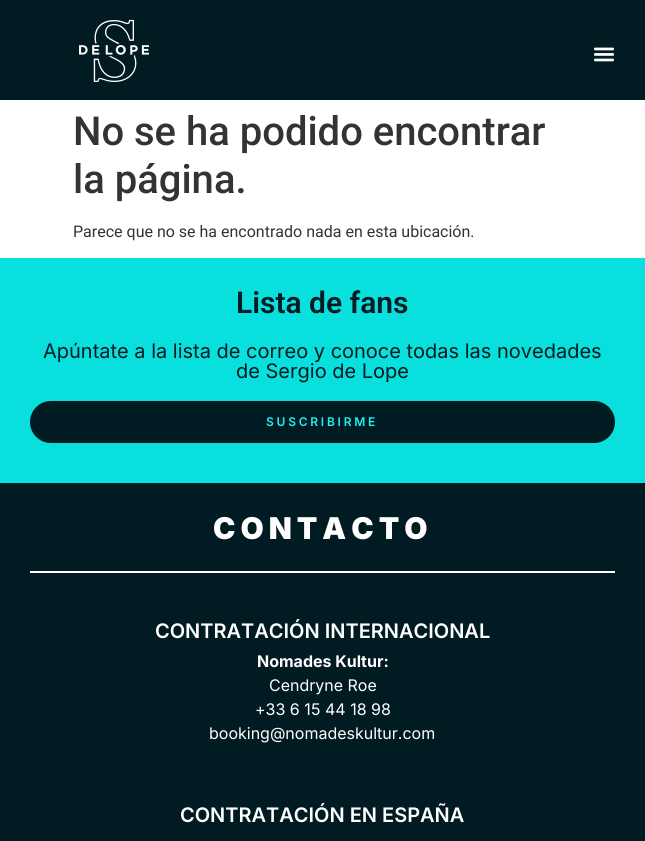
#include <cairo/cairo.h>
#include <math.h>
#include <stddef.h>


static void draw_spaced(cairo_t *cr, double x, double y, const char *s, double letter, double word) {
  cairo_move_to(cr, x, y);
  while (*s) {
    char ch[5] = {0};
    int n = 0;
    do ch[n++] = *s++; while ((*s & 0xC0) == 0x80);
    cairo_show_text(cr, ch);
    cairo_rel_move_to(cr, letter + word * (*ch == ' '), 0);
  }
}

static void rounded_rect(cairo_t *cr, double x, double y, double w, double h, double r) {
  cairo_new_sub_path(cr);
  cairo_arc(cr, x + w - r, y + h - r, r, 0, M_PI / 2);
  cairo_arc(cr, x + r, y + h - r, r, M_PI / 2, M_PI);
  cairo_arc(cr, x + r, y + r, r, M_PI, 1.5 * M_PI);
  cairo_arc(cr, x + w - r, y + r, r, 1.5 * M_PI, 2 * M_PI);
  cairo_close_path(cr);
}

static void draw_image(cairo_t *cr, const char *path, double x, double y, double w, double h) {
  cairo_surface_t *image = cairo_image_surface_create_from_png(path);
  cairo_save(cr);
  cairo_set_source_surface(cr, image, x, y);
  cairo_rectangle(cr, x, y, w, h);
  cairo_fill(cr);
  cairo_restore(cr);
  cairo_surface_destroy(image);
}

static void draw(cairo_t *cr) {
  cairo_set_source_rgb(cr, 1, 1, 1);
  cairo_paint(cr);
  cairo_set_source_rgb(cr, 1 / 255.0, 27 / 255.0, 34 / 255.0);
  cairo_rectangle(cr, 0, 0, 645, 100);
  cairo_fill(cr);
  draw_image(cr, "images/1.png", 79, 19, 70, 63);
  draw_image(cr, "images/2.png", 593, 47, 22, 15);
  cairo_set_source_rgb(cr, 9 / 255.0, 223 / 255.0, 220 / 255.0);
  cairo_rectangle(cr, 0, 258, 645, 225);
  cairo_fill(cr);
  cairo_set_source_rgb(cr, 1 / 255.0, 27 / 255.0, 34 / 255.0);
  rounded_rect(cr, 30, 401, 585, 42, 21);
  cairo_fill(cr);
  cairo_rectangle(cr, 0, 483, 645, 358);
  cairo_fill(cr);
  cairo_set_source_rgb(cr, 1, 1, 1);
  cairo_rectangle(cr, 30, 571, 585, 2);
  cairo_fill(cr);
  cairo_select_font_face(cr, "Roboto Medium", CAIRO_FONT_SLANT_NORMAL, CAIRO_FONT_WEIGHT_NORMAL);
  cairo_set_font_size(cr, 40);
  cairo_set_source_rgb(cr, 51 / 255.0, 51 / 255.0, 51 / 255.0);
  cairo_move_to(cr, 73, 145);
  cairo_show_text(cr, "No se ha podido encontrar");
  cairo_move_to(cr, 73, 193);
  cairo_show_text(cr, "la página.");
  cairo_select_font_face(cr, "Roboto", CAIRO_FONT_SLANT_NORMAL, CAIRO_FONT_WEIGHT_NORMAL);
  cairo_set_font_size(cr, 16);
  cairo_move_to(cr, 73, 237);
  cairo_show_text(cr, "Parece que no se ha encontrado nada en esta ubicación.");
  cairo_select_font_face(cr, "Roboto SemiBold", CAIRO_FONT_SLANT_NORMAL, CAIRO_FONT_WEIGHT_NORMAL);
  cairo_set_font_size(cr, 30);
  cairo_set_source_rgb(cr, 1 / 255.0, 27 / 255.0, 34 / 255.0);
  cairo_move_to(cr, 236, 313);
  cairo_show_text(cr, "Lista de fans");
  cairo_select_font_face(cr, "Inter", CAIRO_FONT_SLANT_NORMAL, CAIRO_FONT_WEIGHT_NORMAL);
  cairo_set_font_size(cr, 20);
  cairo_move_to(cr, 43, 358);
  cairo_show_text(cr, "Apúntate a la lista de correo y conoce todas las novedades");
  cairo_move_to(cr, 236, 378);
  cairo_show_text(cr, "de Sergio de Lope");
  cairo_select_font_face(cr, "Inter SemiBold", CAIRO_FONT_SLANT_NORMAL, CAIRO_FONT_WEIGHT_NORMAL);
  cairo_set_font_size(cr, 12);
  cairo_set_source_rgb(cr, 26 / 255.0, 243 / 255.0, 240 / 255.0);
  draw_spaced(cr, 266, 426, "SUSCRIBIRME", 2.75, 0);
  cairo_select_font_face(cr, "Inter Black", CAIRO_FONT_SLANT_NORMAL, CAIRO_FONT_WEIGHT_NORMAL);
  cairo_set_font_size(cr, 30);
  cairo_set_source_rgb(cr, 1, 1, 1);
  draw_spaced(cr, 213, 539, "CONTACTO", 5, 0);
  cairo_select_font_face(cr, "Inter SemiBold", CAIRO_FONT_SLANT_NORMAL, CAIRO_FONT_WEIGHT_NORMAL);
  cairo_set_font_size(cr, 20);
  cairo_move_to(cr, 155, 638);
  cairo_show_text(cr, "CONTRATACIÓN INTERNACIONAL");
  cairo_select_font_face(cr, "Inter", CAIRO_FONT_SLANT_NORMAL, CAIRO_FONT_WEIGHT_BOLD);
  cairo_set_font_size(cr, 16);
  cairo_move_to(cr, 257, 667);
  cairo_show_text(cr, "Nomades Kultur:");
  cairo_select_font_face(cr, "Inter", CAIRO_FONT_SLANT_NORMAL, CAIRO_FONT_WEIGHT_NORMAL);
  cairo_move_to(cr, 269, 691);
  cairo_show_text(cr, "Cendryne Roe");
  cairo_move_to(cr, 255, 715);
  cairo_show_text(cr, "+33 6 15 44 18 98");
  cairo_move_to(cr, 209, 739);
  cairo_show_text(cr, "booking@nomadeskultur.com");
  cairo_select_font_face(cr, "Inter SemiBold", CAIRO_FONT_SLANT_NORMAL, CAIRO_FONT_WEIGHT_NORMAL);
  cairo_set_font_size(cr, 20);
  cairo_move_to(cr, 180, 822);
  cairo_show_text(cr, "CONTRATACIÓN EN ESPAÑA");
}

int main(void) {
  cairo_surface_t *surface = cairo_image_surface_create(CAIRO_FORMAT_RGB24, 645, 841);
  cairo_t *cr = cairo_create(surface);
  cairo_font_options_t *options = cairo_font_options_create();
  cairo_font_options_set_hint_metrics(options, CAIRO_HINT_METRICS_OFF);
  cairo_font_options_set_hint_style(options, CAIRO_HINT_STYLE_NONE);
  cairo_set_font_options(cr, options);
  cairo_set_miter_limit(cr, 4);
  draw(cr);
  cairo_surface_write_to_png(surface, "out.png");
  cairo_font_options_destroy(options);
  cairo_destroy(cr);
  cairo_surface_destroy(surface);
  return 0;
}
